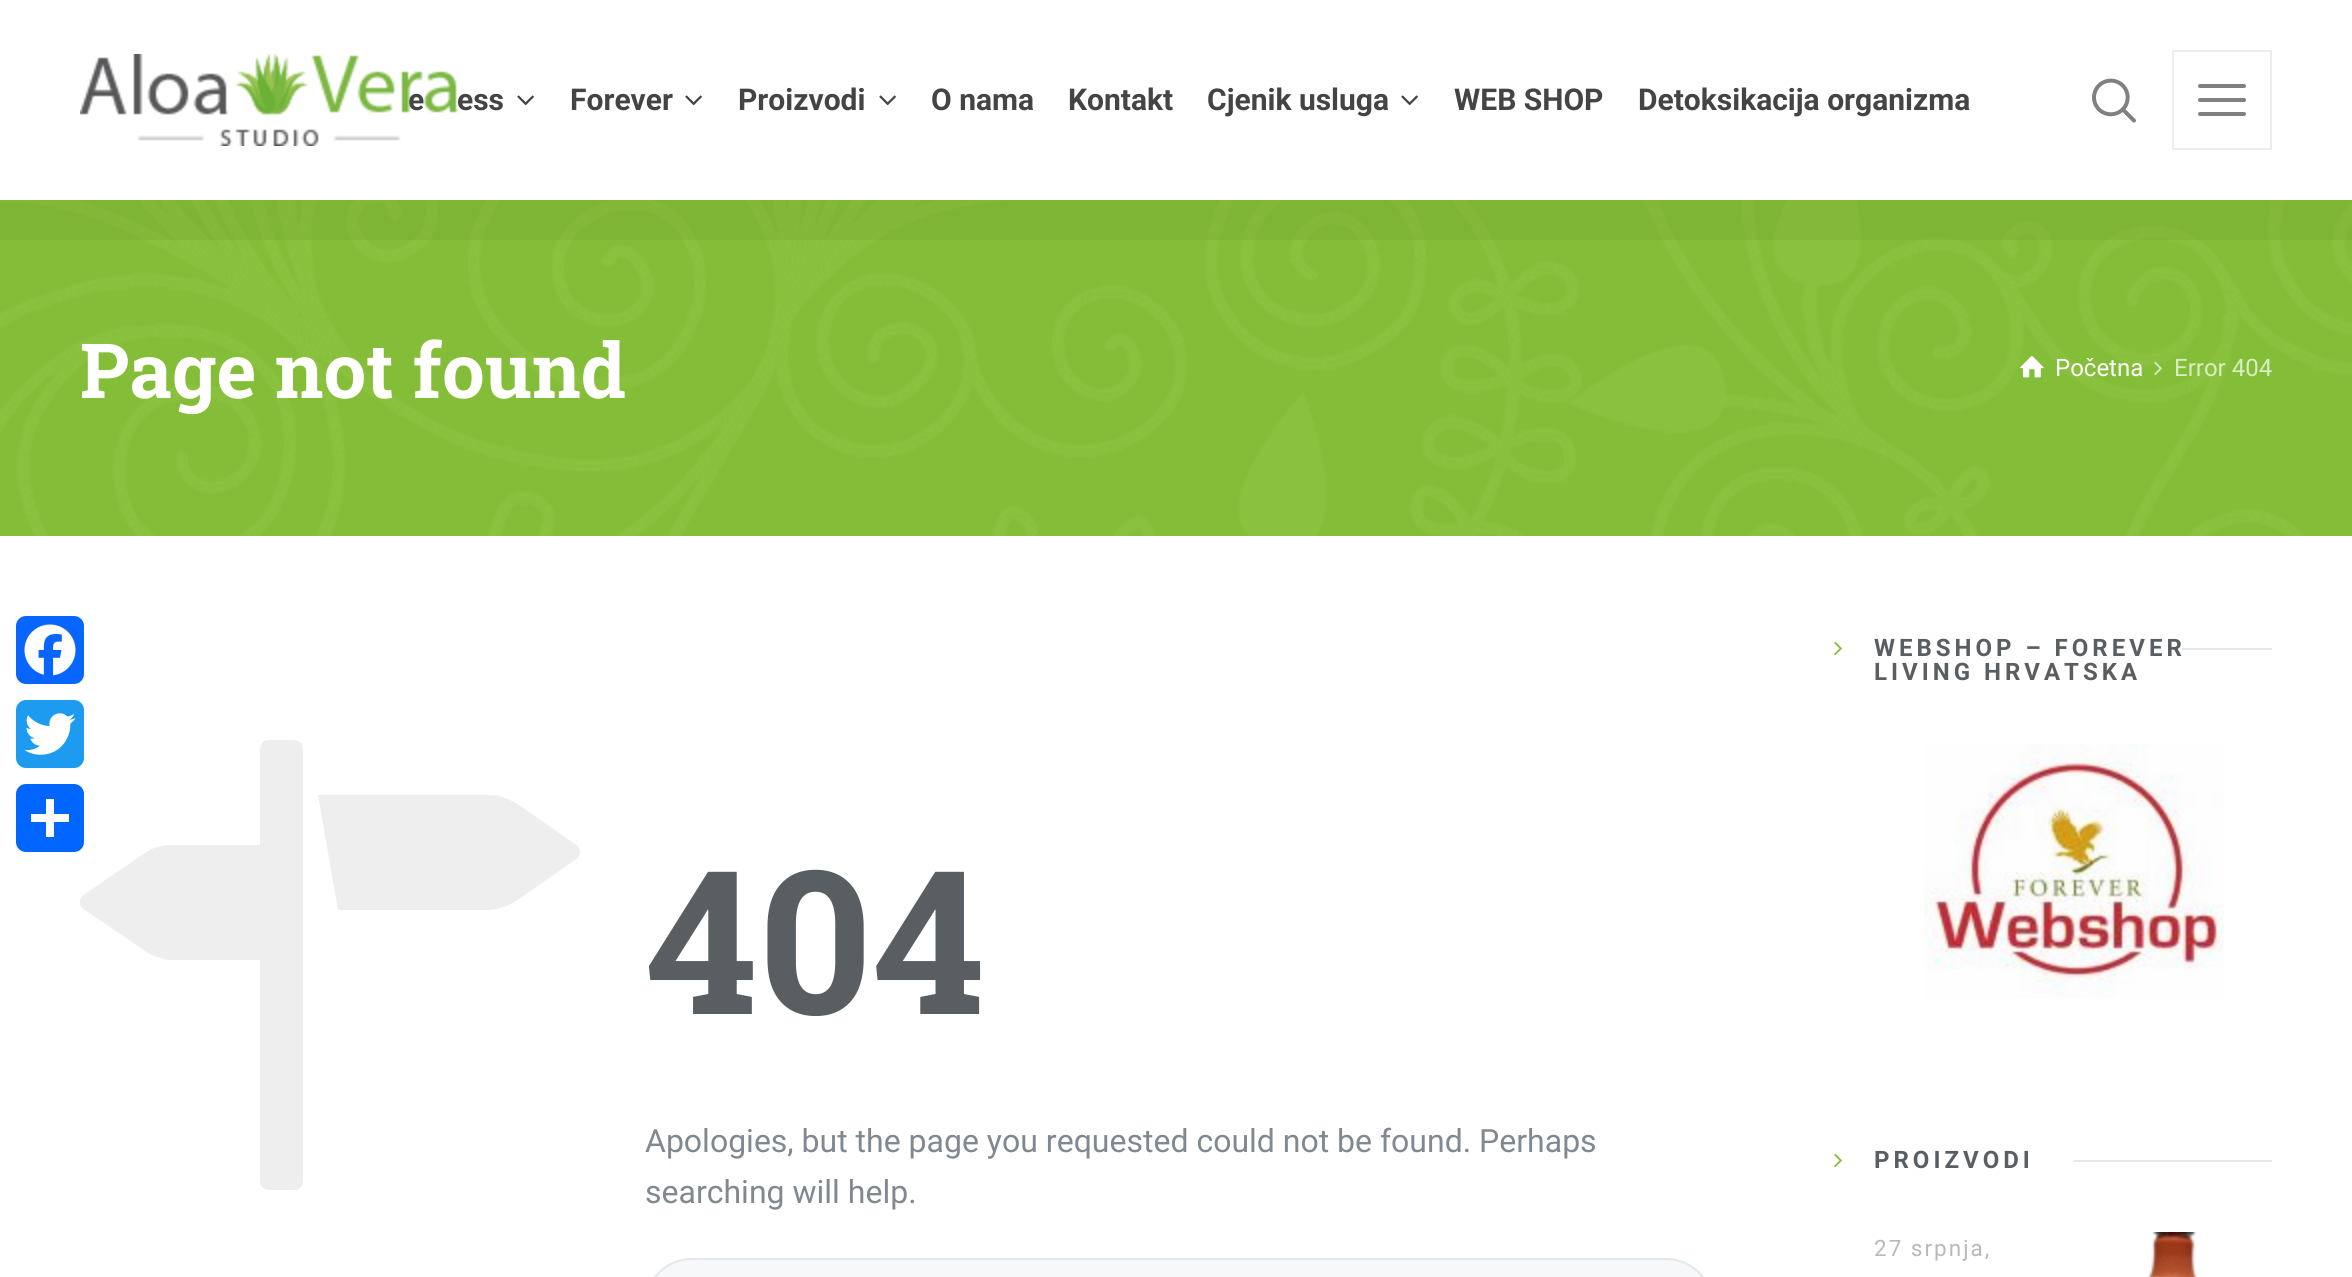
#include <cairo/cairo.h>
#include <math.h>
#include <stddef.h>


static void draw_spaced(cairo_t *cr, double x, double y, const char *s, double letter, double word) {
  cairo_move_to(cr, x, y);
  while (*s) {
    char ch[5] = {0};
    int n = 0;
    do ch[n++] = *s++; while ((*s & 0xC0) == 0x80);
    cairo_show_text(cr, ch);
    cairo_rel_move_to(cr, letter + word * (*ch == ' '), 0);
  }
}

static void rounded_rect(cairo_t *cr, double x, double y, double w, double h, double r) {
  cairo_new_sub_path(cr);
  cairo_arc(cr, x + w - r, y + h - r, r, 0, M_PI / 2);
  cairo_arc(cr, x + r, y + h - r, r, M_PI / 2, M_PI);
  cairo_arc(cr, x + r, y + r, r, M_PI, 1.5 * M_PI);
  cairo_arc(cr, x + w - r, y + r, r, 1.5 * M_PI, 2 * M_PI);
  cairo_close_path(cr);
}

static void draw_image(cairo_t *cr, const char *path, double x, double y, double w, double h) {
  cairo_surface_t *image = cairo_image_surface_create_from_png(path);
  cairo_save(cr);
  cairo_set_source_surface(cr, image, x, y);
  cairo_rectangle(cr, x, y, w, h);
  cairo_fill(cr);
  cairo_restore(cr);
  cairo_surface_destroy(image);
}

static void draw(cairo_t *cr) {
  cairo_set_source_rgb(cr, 1, 1, 1);
  cairo_paint(cr);
  cairo_set_source_rgb(cr, 8 / 255.0, 102 / 255.0, 1);
  rounded_rect(cr, 16, 616, 68, 68, 10);
  cairo_fill(cr);
  draw_image(cr, "images/1.png", 24, 624, 52, 52);
  draw_image(cr, "images/9.png", 80, 740, 500, 450);
  cairo_set_source_rgb(cr, 29 / 255.0, 155 / 255.0, 240 / 255.0);
  rounded_rect(cr, 16, 700, 68, 68, 10);
  cairo_fill(cr);
  draw_image(cr, "images/2.png", 24, 713, 52, 42);
  cairo_set_source_rgb(cr, 1 / 255.0, 102 / 255.0, 1);
  rounded_rect(cr, 16, 784, 68, 68, 10);
  cairo_fill(cr);
  cairo_set_source_rgb(cr, 1, 1, 1);
  cairo_rectangle(cr, 46, 799, 8, 38);
  cairo_fill(cr);
  cairo_rectangle(cr, 31, 814, 38, 8);
  cairo_fill(cr);
  draw_image(cr, "images/4.png", 517, 95, 17, 11);
  draw_image(cr, "images/4.png", 685, 95, 17, 11);
  draw_image(cr, "images/4.png", 879, 95, 17, 11);
  draw_image(cr, "images/4.png", 1401, 95, 17, 11);
  draw_image(cr, "images/5.png", 2092, 78, 44, 45);
  cairo_rectangle(cr, 2173, 51, 98, 98);
  cairo_set_source_rgb(cr, 237 / 255.0, 237 / 255.0, 237 / 255.0);
  cairo_stroke(cr);
  cairo_set_source_rgb(cr, 128 / 255.0, 128 / 255.0, 128 / 255.0);
  rounded_rect(cr, 2198, 84, 48, 4, 2);
  cairo_fill(cr);
  rounded_rect(cr, 2198, 98, 48, 4, 2);
  cairo_fill(cr);
  rounded_rect(cr, 2198, 112, 48, 4, 2);
  cairo_fill(cr);
  draw_image(cr, "images/6.png", 0, 200, 2352, 336);
  cairo_set_source_rgba(cr, 0, 0, 0, 0.05);
  cairo_rectangle(cr, 0, 200, 2352, 40);
  cairo_fill(cr);
  draw_image(cr, "images/7.png", 2020, 356, 24, 22);
  draw_image(cr, "images/8.png", 2154, 361, 8, 15);
  cairo_set_source_rgb(cr, 247 / 255.0, 248 / 255.0, 249 / 255.0);
  rounded_rect(cr, 645, 1259, 1068, 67, 47);
  cairo_fill_preserve(cr);
  cairo_set_source_rgb(cr, 225 / 255.0, 232 / 255.0, 238 / 255.0);
  cairo_stroke(cr);
  draw_image(cr, "images/10.png", 1834, 641, 8, 15);
  cairo_rectangle(cr, 2182, 648, 90, 2);
  cairo_fill(cr);
  draw_image(cr, "images/11.png", 1924, 744, 300, 254);
  draw_image(cr, "images/10.png", 1834, 1153, 8, 15);
  cairo_rectangle(cr, 2074, 1160, 198, 2);
  cairo_fill(cr);
  draw_image(cr, "images/12.png", 2147, 1232, 50, 45);
  cairo_select_font_face(cr, "Roboto", CAIRO_FONT_SLANT_NORMAL, CAIRO_FONT_WEIGHT_BOLD);
  cairo_set_font_size(cr, 30);
  cairo_set_source_rgb(cr, 68 / 255.0, 68 / 255.0, 68 / 255.0);
  cairo_move_to(cr, 408, 110);
  cairo_show_text(cr, "e");
  draw_image(cr, "images/3.png", 80, 54, 378, 92);
  cairo_move_to(cr, 457, 110);
  cairo_show_text(cr, "ess");
  cairo_move_to(cr, 570, 110);
  cairo_show_text(cr, "Forever");
  cairo_move_to(cr, 738, 110);
  cairo_show_text(cr, "Proizvodi");
  cairo_move_to(cr, 931, 110);
  cairo_show_text(cr, "O nama");
  cairo_move_to(cr, 1068, 110);
  cairo_show_text(cr, "Kontakt");
  cairo_move_to(cr, 1207, 110);
  cairo_show_text(cr, "Cjenik usluga");
  cairo_move_to(cr, 1454, 110);
  cairo_show_text(cr, "WEB SHOP");
  cairo_move_to(cr, 1638, 110);
  cairo_show_text(cr, "Detoksikacija organizma");
  cairo_select_font_face(cr, "Roboto Slab", CAIRO_FONT_SLANT_NORMAL, CAIRO_FONT_WEIGHT_BOLD);
  cairo_set_font_size(cr, 76);
  cairo_set_source_rgb(cr, 1, 1, 1);
  cairo_move_to(cr, 80, 398);
  cairo_show_text(cr, "Page not found");
  cairo_select_font_face(cr, "Roboto", CAIRO_FONT_SLANT_NORMAL, CAIRO_FONT_WEIGHT_NORMAL);
  cairo_set_font_size(cr, 24);
  cairo_move_to(cr, 2055, 376);
  cairo_show_text(cr, "Početna");
  cairo_set_source_rgb(cr, 218 / 255.0, 236 / 255.0, 196 / 255.0);
  cairo_move_to(cr, 2174, 376);
  cairo_show_text(cr, "Error 404");
  cairo_select_font_face(cr, "Roboto Slab", CAIRO_FONT_SLANT_NORMAL, CAIRO_FONT_WEIGHT_BOLD);
  cairo_set_font_size(cr, 200);
  cairo_set_source_rgb(cr, 88 / 255.0, 94 / 255.0, 97 / 255.0);
  cairo_move_to(cr, 645, 1014);
  cairo_show_text(cr, "404");
  cairo_select_font_face(cr, "Roboto", CAIRO_FONT_SLANT_NORMAL, CAIRO_FONT_WEIGHT_NORMAL);
  cairo_set_font_size(cr, 32);
  cairo_set_source_rgb(cr, 128 / 255.0, 136 / 255.0, 145 / 255.0);
  cairo_move_to(cr, 645, 1152);
  cairo_show_text(cr, "Apologies, but the page you requested could not be found. Perhaps");
  cairo_move_to(cr, 645, 1203);
  cairo_show_text(cr, "searching will help.");
  cairo_select_font_face(cr, "Roboto", CAIRO_FONT_SLANT_NORMAL, CAIRO_FONT_WEIGHT_BOLD);
  cairo_set_font_size(cr, 24);
  cairo_set_source_rgb(cr, 88 / 255.0, 94 / 255.0, 97 / 255.0);
  draw_spaced(cr, 1874, 656, "WEBSHOP – FOREVER", 4, 0);
  draw_spaced(cr, 1874, 680, "LIVING HRVATSKA", 4, 0);
  draw_spaced(cr, 1874, 1168, "PROIZVODI", 4, 0);
  cairo_select_font_face(cr, "Roboto", CAIRO_FONT_SLANT_NORMAL, CAIRO_FONT_WEIGHT_NORMAL);
  cairo_set_font_size(cr, 22.5);
  cairo_set_source_rgb(cr, 185 / 255.0, 185 / 255.0, 185 / 255.0);
  draw_spaced(cr, 1874, 1256, "27 srpnja,", 2, 0);
}

int main(void) {
  cairo_surface_t *surface = cairo_image_surface_create(CAIRO_FORMAT_RGB24, 2352, 1277);
  cairo_t *cr = cairo_create(surface);
  cairo_font_options_t *options = cairo_font_options_create();
  cairo_font_options_set_hint_metrics(options, CAIRO_HINT_METRICS_OFF);
  cairo_font_options_set_hint_style(options, CAIRO_HINT_STYLE_NONE);
  cairo_set_font_options(cr, options);
  cairo_set_miter_limit(cr, 4);
  draw(cr);
  cairo_surface_write_to_png(surface, "out.png");
  cairo_font_options_destroy(options);
  cairo_destroy(cr);
  cairo_surface_destroy(surface);
  return 0;
}
